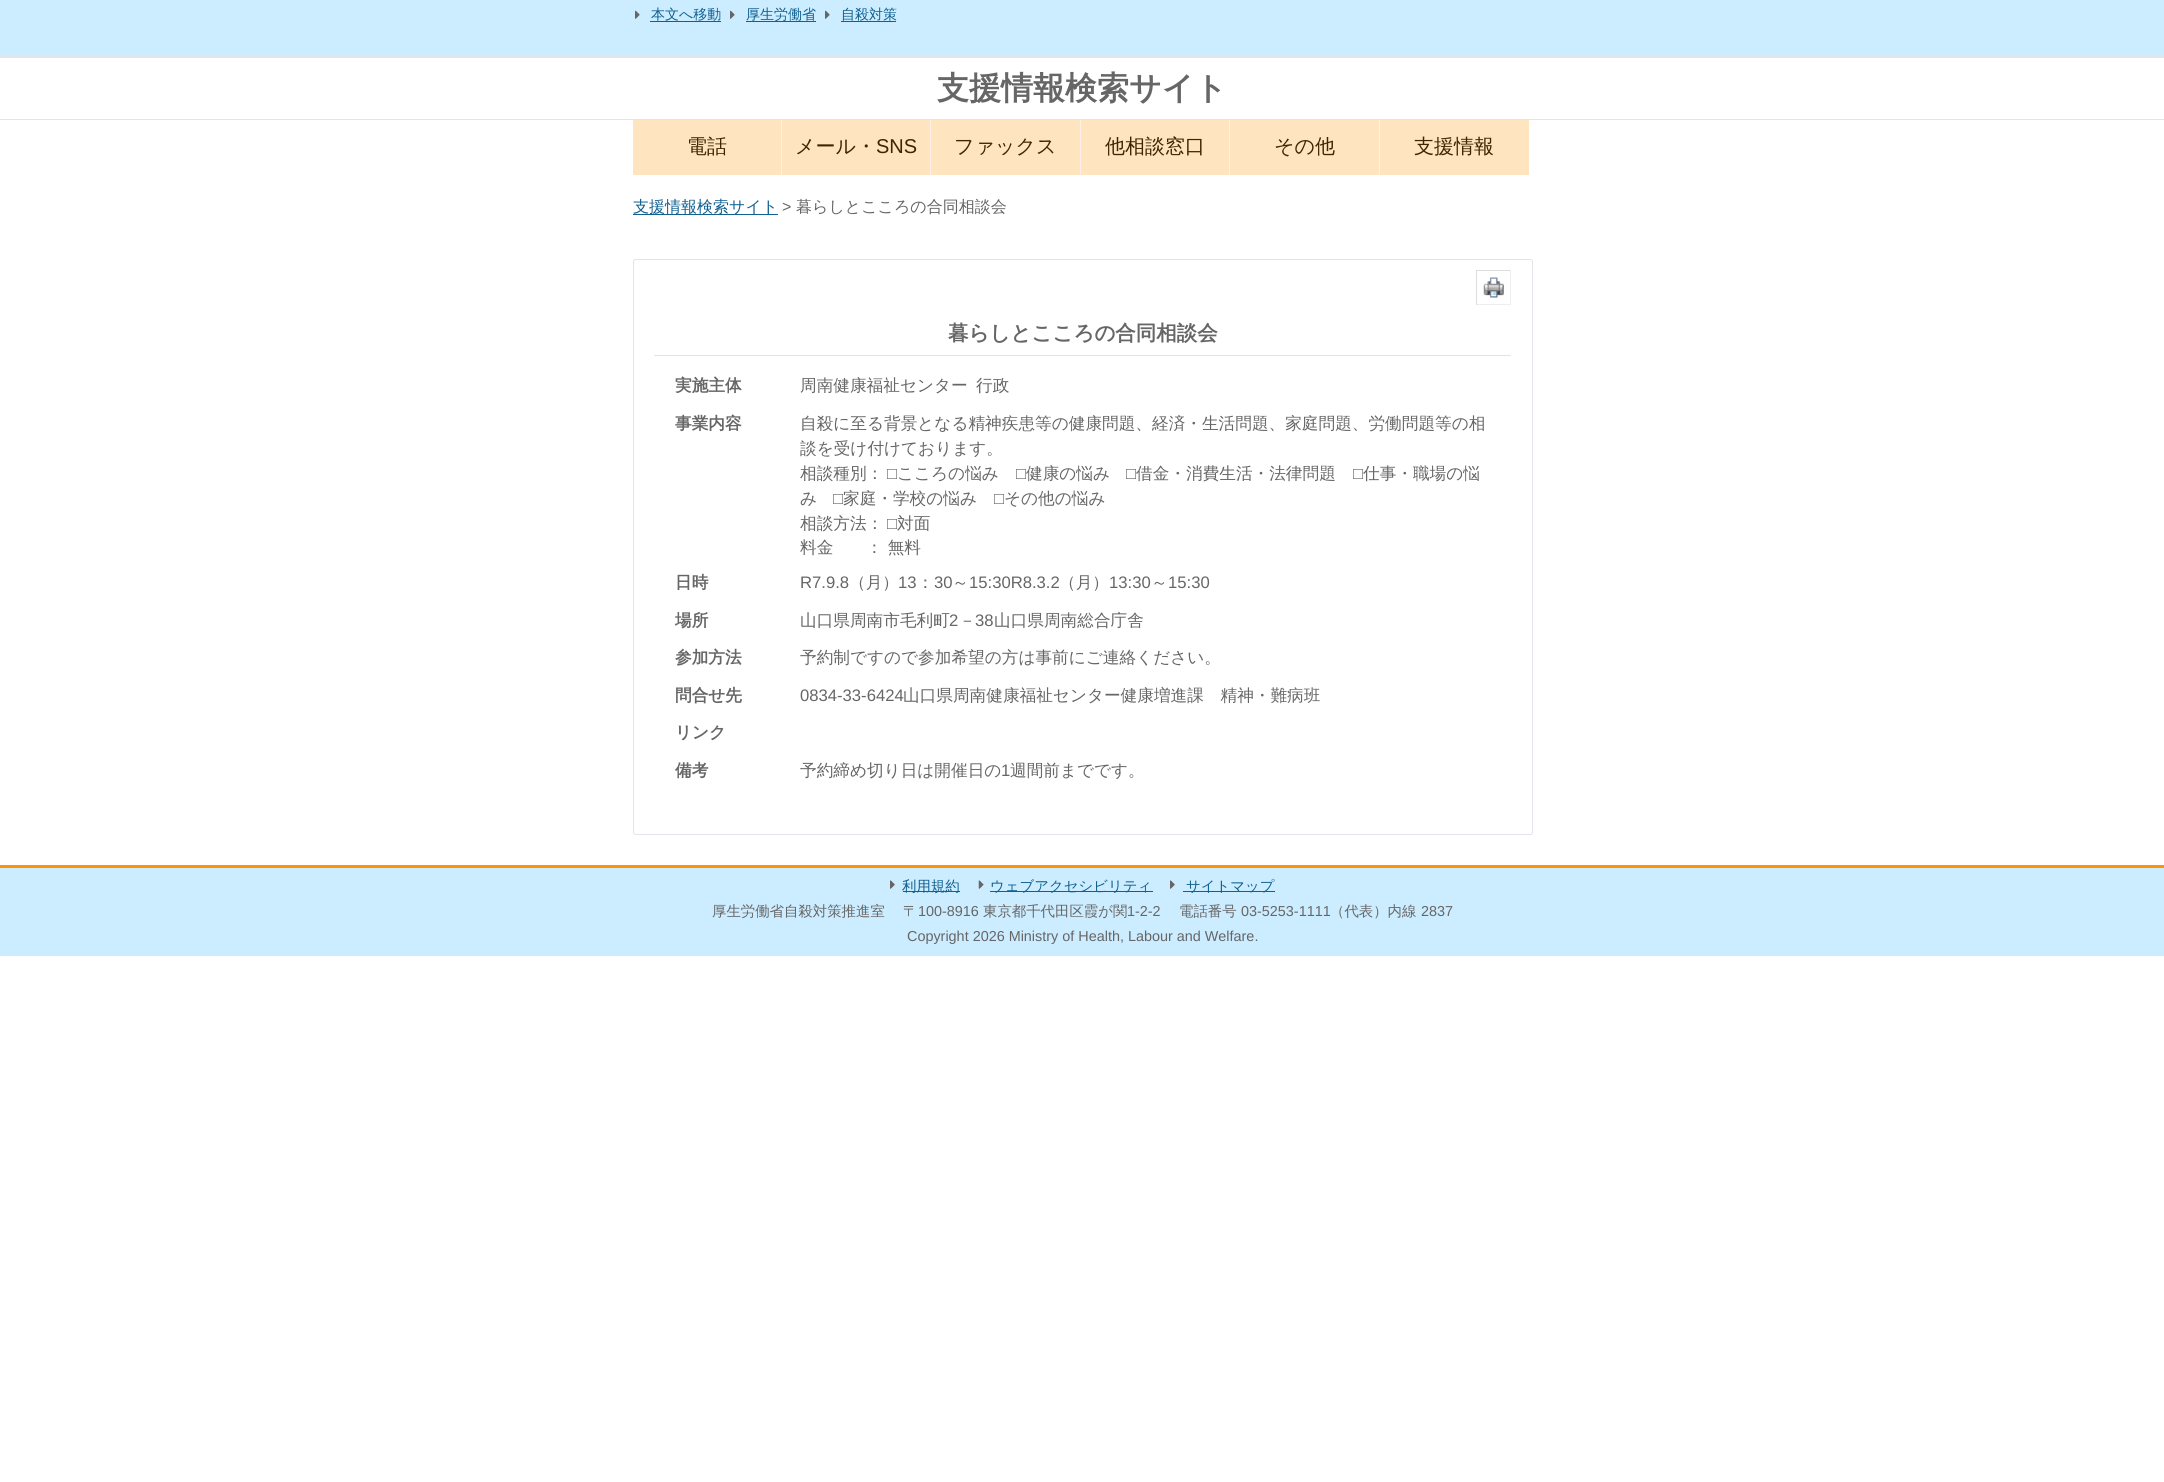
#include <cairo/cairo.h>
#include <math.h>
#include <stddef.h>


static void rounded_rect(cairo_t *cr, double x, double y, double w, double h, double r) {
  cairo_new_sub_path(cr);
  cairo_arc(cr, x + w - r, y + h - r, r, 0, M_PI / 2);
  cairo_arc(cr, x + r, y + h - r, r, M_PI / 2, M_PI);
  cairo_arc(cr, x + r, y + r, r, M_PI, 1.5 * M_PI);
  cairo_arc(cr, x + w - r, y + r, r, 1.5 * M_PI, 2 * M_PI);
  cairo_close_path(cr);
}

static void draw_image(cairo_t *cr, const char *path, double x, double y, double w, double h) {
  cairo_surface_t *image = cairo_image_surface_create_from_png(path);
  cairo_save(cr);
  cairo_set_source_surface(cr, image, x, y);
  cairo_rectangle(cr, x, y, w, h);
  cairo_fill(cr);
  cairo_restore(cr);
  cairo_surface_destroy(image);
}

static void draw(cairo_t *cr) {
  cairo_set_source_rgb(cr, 1, 1, 1);
  cairo_paint(cr);
  cairo_set_source_rgb(cr, 204 / 255.0, 236 / 255.0, 1);
  cairo_rectangle(cr, 0, 0, 2164, 58);
  cairo_fill(cr);
  cairo_set_source_rgb(cr, 225 / 255.0, 228 / 255.0, 232 / 255.0);
  cairo_rectangle(cr, 0, 56, 2164, 1);
  cairo_fill(cr);
  draw_image(cr, "images/1.png", 635, 10, 5, 9);
  cairo_set_source_rgb(cr, 16 / 255.0, 96 / 255.0, 144 / 255.0);
  cairo_rectangle(cr, 650, 21, 71, 1);
  cairo_fill(cr);
  draw_image(cr, "images/1.png", 730, 10, 5, 9);
  cairo_rectangle(cr, 746, 21, 70, 1);
  cairo_fill(cr);
  draw_image(cr, "images/1.png", 825, 10, 5, 9);
  cairo_rectangle(cr, 841, 21, 55, 1);
  cairo_fill(cr);
  cairo_set_source_rgb(cr, 225 / 255.0, 228 / 255.0, 232 / 255.0);
  cairo_rectangle(cr, 0, 119, 2164, 1);
  cairo_fill(cr);
  cairo_set_source_rgb(cr, 1, 228 / 255.0, 192 / 255.0);
  cairo_rectangle(cr, 633, 120, 297, 55);
  cairo_fill(cr);
  cairo_set_source_rgb(cr, 1, 239 / 255.0, 230 / 255.0);
  cairo_rectangle(cr, 781, 120, 1, 55);
  cairo_fill(cr);
  cairo_rectangle(cr, 930, 120, 1, 55);
  cairo_fill(cr);
  cairo_set_source_rgb(cr, 1, 228 / 255.0, 192 / 255.0);
  cairo_rectangle(cr, 931, 120, 149, 55);
  cairo_fill(cr);
  cairo_set_source_rgb(cr, 1, 239 / 255.0, 230 / 255.0);
  cairo_rectangle(cr, 1080, 120, 1, 55);
  cairo_fill(cr);
  cairo_set_source_rgb(cr, 1, 228 / 255.0, 192 / 255.0);
  cairo_rectangle(cr, 1081, 120, 148, 55);
  cairo_fill(cr);
  cairo_set_source_rgb(cr, 1, 239 / 255.0, 230 / 255.0);
  cairo_rectangle(cr, 1229, 120, 1, 55);
  cairo_fill(cr);
  cairo_set_source_rgb(cr, 1, 228 / 255.0, 192 / 255.0);
  cairo_rectangle(cr, 1230, 120, 149, 55);
  cairo_fill(cr);
  cairo_set_source_rgb(cr, 1, 239 / 255.0, 230 / 255.0);
  cairo_rectangle(cr, 1379, 120, 1, 55);
  cairo_fill(cr);
  cairo_set_source_rgb(cr, 1, 228 / 255.0, 192 / 255.0);
  cairo_rectangle(cr, 1380, 120, 149, 55);
  cairo_fill(cr);
  cairo_set_source_rgb(cr, 16 / 255.0, 96 / 255.0, 144 / 255.0);
  cairo_rectangle(cr, 633, 214, 145, 1);
  cairo_fill(cr);
  rounded_rect(cr, 633.5, 259.5, 899, 575, 2);
  cairo_set_source_rgb(cr, 225 / 255.0, 228 / 255.0, 232 / 255.0);
  cairo_set_line_width(cr, 1);
  cairo_stroke(cr);
  cairo_set_source_rgb(cr, 221 / 255.0, 221 / 255.0, 221 / 255.0);
  cairo_rectangle(cr, 1476, 270, 35, 1);
  cairo_fill(cr);
  cairo_set_source_rgb(cr, 238 / 255.0, 238 / 255.0, 238 / 255.0);
  cairo_rectangle(cr, 1510, 270, 1, 35);
  cairo_fill(cr);
  cairo_rectangle(cr, 1476, 304, 35, 1);
  cairo_fill(cr);
  cairo_set_source_rgb(cr, 221 / 255.0, 221 / 255.0, 221 / 255.0);
  cairo_rectangle(cr, 1476, 270, 1, 35);
  cairo_fill(cr);
  draw_image(cr, "images/2.png", 1483, 277, 21, 21);
  cairo_set_source_rgb(cr, 225 / 255.0, 228 / 255.0, 232 / 255.0);
  cairo_rectangle(cr, 654, 355, 857, 1);
  cairo_fill(cr);
  cairo_set_source_rgb(cr, 204 / 255.0, 236 / 255.0, 1);
  cairo_rectangle(cr, 0, 868, 2164, 87);
  cairo_fill(cr);
  cairo_set_source_rgb(cr, 225 / 255.0, 228 / 255.0, 232 / 255.0);
  cairo_rectangle(cr, 0, 955, 2164, 1);
  cairo_fill(cr);
  cairo_set_source_rgb(cr, 1, 147 / 255.0, 0);
  cairo_rectangle(cr, 0, 865, 2164, 3);
  cairo_fill(cr);
  draw_image(cr, "images/3.png", 890, 880, 5, 9);
  cairo_set_source_rgb(cr, 16 / 255.0, 96 / 255.0, 144 / 255.0);
  cairo_rectangle(cr, 903, 891, 57, 1);
  cairo_fill(cr);
  draw_image(cr, "images/4.png", 978, 880, 6, 9);
  cairo_rectangle(cr, 990, 891, 163, 1);
  cairo_fill(cr);
  draw_image(cr, "images/3.png", 1170, 880, 5, 9);
  cairo_rectangle(cr, 1183, 891, 92, 1);
  cairo_fill(cr);
  cairo_select_font_face(cr, "WenQuanYi Zen Hei Medium", CAIRO_FONT_SLANT_NORMAL, CAIRO_FONT_WEIGHT_NORMAL);
  cairo_set_font_size(cr, 14);
  cairo_move_to(cr, 651, 19);
  cairo_show_text(cr, "本文へ移動");
  cairo_move_to(cr, 746, 19);
  cairo_show_text(cr, "厚生労働省");
  cairo_move_to(cr, 841, 19);
  cairo_show_text(cr, "自殺対策");
  cairo_select_font_face(cr, "WenQuanYi Zen Hei", CAIRO_FONT_SLANT_NORMAL, CAIRO_FONT_WEIGHT_BOLD);
  cairo_set_font_size(cr, 32);
  cairo_set_source_rgb(cr, 102 / 255.0, 102 / 255.0, 102 / 255.0);
  cairo_move_to(cr, 937, 99);
  cairo_show_text(cr, "支援情報検索サイト");
  cairo_select_font_face(cr, "WenQuanYi Zen Hei Medium", CAIRO_FONT_SLANT_NORMAL, CAIRO_FONT_WEIGHT_NORMAL);
  cairo_set_font_size(cr, 20);
  cairo_set_source_rgb(cr, 64 / 255.0, 37 / 255.0, 0);
  cairo_move_to(cr, 687, 153);
  cairo_show_text(cr, "電話");
  cairo_move_to(cr, 795, 153);
  cairo_show_text(cr, "メール・");
  cairo_select_font_face(cr, "Liberation Sans", CAIRO_FONT_SLANT_NORMAL, CAIRO_FONT_WEIGHT_NORMAL);
  cairo_move_to(cr, 876, 153);
  cairo_show_text(cr, "SNS");
  cairo_select_font_face(cr, "WenQuanYi Zen Hei Medium", CAIRO_FONT_SLANT_NORMAL, CAIRO_FONT_WEIGHT_NORMAL);
  cairo_move_to(cr, 954, 153);
  cairo_show_text(cr, "ファックス");
  cairo_move_to(cr, 1105, 153);
  cairo_show_text(cr, "他相談窓口");
  cairo_move_to(cr, 1274, 153);
  cairo_show_text(cr, "その他");
  cairo_move_to(cr, 1414, 153);
  cairo_show_text(cr, "支援情報");
  cairo_set_font_size(cr, 16);
  cairo_set_source_rgb(cr, 16 / 255.0, 96 / 255.0, 144 / 255.0);
  cairo_move_to(cr, 633, 212);
  cairo_show_text(cr, "支援情報検索サイト");
  cairo_select_font_face(cr, "Liberation Sans", CAIRO_FONT_SLANT_NORMAL, CAIRO_FONT_WEIGHT_NORMAL);
  cairo_set_source_rgb(cr, 102 / 255.0, 102 / 255.0, 102 / 255.0);
  cairo_move_to(cr, 782, 212);
  cairo_show_text(cr, ">");
  cairo_select_font_face(cr, "WenQuanYi Zen Hei Medium", CAIRO_FONT_SLANT_NORMAL, CAIRO_FONT_WEIGHT_NORMAL);
  cairo_move_to(cr, 796, 212);
  cairo_show_text(cr, "暮らしとこころの合同相談会");
  cairo_select_font_face(cr, "WenQuanYi Zen Hei", CAIRO_FONT_SLANT_NORMAL, CAIRO_FONT_WEIGHT_BOLD);
  cairo_set_font_size(cr, 20.5);
  cairo_move_to(cr, 948, 340);
  cairo_show_text(cr, "暮らしとこころの合同相談会");
  cairo_set_font_size(cr, 16.65);
  cairo_move_to(cr, 675, 391);
  cairo_show_text(cr, "実施主体");
  cairo_select_font_face(cr, "WenQuanYi Zen Hei Medium", CAIRO_FONT_SLANT_NORMAL, CAIRO_FONT_WEIGHT_NORMAL);
  cairo_move_to(cr, 800, 391);
  cairo_show_text(cr, "周南健康福祉センター");
  cairo_move_to(cr, 976, 391);
  cairo_show_text(cr, "行政");
  cairo_select_font_face(cr, "WenQuanYi Zen Hei", CAIRO_FONT_SLANT_NORMAL, CAIRO_FONT_WEIGHT_BOLD);
  cairo_move_to(cr, 675, 429);
  cairo_show_text(cr, "事業内容");
  cairo_select_font_face(cr, "WenQuanYi Zen Hei Medium", CAIRO_FONT_SLANT_NORMAL, CAIRO_FONT_WEIGHT_NORMAL);
  cairo_move_to(cr, 800, 429);
  cairo_show_text(cr, "自殺に至る背景となる精神疾患等の健康問題、経済・生活問題、家庭問題、労働問題等の相");
  cairo_move_to(cr, 800, 454);
  cairo_show_text(cr, "談を受け付けております。");
  cairo_move_to(cr, 800, 479);
  cairo_show_text(cr, "相談種別：");
  cairo_select_font_face(cr, "Liberation Sans", CAIRO_FONT_SLANT_NORMAL, CAIRO_FONT_WEIGHT_NORMAL);
  cairo_move_to(cr, 887, 479);
  cairo_show_text(cr, "□");
  cairo_select_font_face(cr, "WenQuanYi Zen Hei Medium", CAIRO_FONT_SLANT_NORMAL, CAIRO_FONT_WEIGHT_NORMAL);
  cairo_move_to(cr, 897, 479);
  cairo_show_text(cr, "こころの悩み");
  cairo_select_font_face(cr, "Liberation Sans", CAIRO_FONT_SLANT_NORMAL, CAIRO_FONT_WEIGHT_NORMAL);
  cairo_move_to(cr, 1016, 479);
  cairo_show_text(cr, "□");
  cairo_select_font_face(cr, "WenQuanYi Zen Hei Medium", CAIRO_FONT_SLANT_NORMAL, CAIRO_FONT_WEIGHT_NORMAL);
  cairo_move_to(cr, 1026, 479);
  cairo_show_text(cr, "健康の悩み");
  cairo_select_font_face(cr, "Liberation Sans", CAIRO_FONT_SLANT_NORMAL, CAIRO_FONT_WEIGHT_NORMAL);
  cairo_move_to(cr, 1126, 479);
  cairo_show_text(cr, "□");
  cairo_select_font_face(cr, "WenQuanYi Zen Hei Medium", CAIRO_FONT_SLANT_NORMAL, CAIRO_FONT_WEIGHT_NORMAL);
  cairo_move_to(cr, 1136, 479);
  cairo_show_text(cr, "借金・消費生活・法律問題");
  cairo_select_font_face(cr, "Liberation Sans", CAIRO_FONT_SLANT_NORMAL, CAIRO_FONT_WEIGHT_NORMAL);
  cairo_move_to(cr, 1353, 479);
  cairo_show_text(cr, "□");
  cairo_select_font_face(cr, "WenQuanYi Zen Hei Medium", CAIRO_FONT_SLANT_NORMAL, CAIRO_FONT_WEIGHT_NORMAL);
  cairo_move_to(cr, 1363, 479);
  cairo_show_text(cr, "仕事・職場の悩");
  cairo_move_to(cr, 800, 504);
  cairo_show_text(cr, "み");
  cairo_select_font_face(cr, "Liberation Sans", CAIRO_FONT_SLANT_NORMAL, CAIRO_FONT_WEIGHT_NORMAL);
  cairo_move_to(cr, 833, 504);
  cairo_show_text(cr, "□");
  cairo_select_font_face(cr, "WenQuanYi Zen Hei Medium", CAIRO_FONT_SLANT_NORMAL, CAIRO_FONT_WEIGHT_NORMAL);
  cairo_move_to(cr, 843, 504);
  cairo_show_text(cr, "家庭・学校の悩み");
  cairo_select_font_face(cr, "Liberation Sans", CAIRO_FONT_SLANT_NORMAL, CAIRO_FONT_WEIGHT_NORMAL);
  cairo_move_to(cr, 994, 504);
  cairo_show_text(cr, "□");
  cairo_select_font_face(cr, "WenQuanYi Zen Hei Medium", CAIRO_FONT_SLANT_NORMAL, CAIRO_FONT_WEIGHT_NORMAL);
  cairo_move_to(cr, 1004, 504);
  cairo_show_text(cr, "その他の悩み");
  cairo_move_to(cr, 800, 529);
  cairo_show_text(cr, "相談方法：");
  cairo_select_font_face(cr, "Liberation Sans", CAIRO_FONT_SLANT_NORMAL, CAIRO_FONT_WEIGHT_NORMAL);
  cairo_move_to(cr, 887, 529);
  cairo_show_text(cr, "□");
  cairo_select_font_face(cr, "WenQuanYi Zen Hei Medium", CAIRO_FONT_SLANT_NORMAL, CAIRO_FONT_WEIGHT_NORMAL);
  cairo_move_to(cr, 897, 529);
  cairo_show_text(cr, "対面");
  cairo_move_to(cr, 800, 553);
  cairo_show_text(cr, "料金");
  cairo_move_to(cr, 866, 553);
  cairo_show_text(cr, "： 無料");
  cairo_select_font_face(cr, "WenQuanYi Zen Hei", CAIRO_FONT_SLANT_NORMAL, CAIRO_FONT_WEIGHT_BOLD);
  cairo_move_to(cr, 675, 588);
  cairo_show_text(cr, "日時");
  cairo_select_font_face(cr, "Liberation Sans", CAIRO_FONT_SLANT_NORMAL, CAIRO_FONT_WEIGHT_NORMAL);
  cairo_move_to(cr, 800, 588);
  cairo_show_text(cr, "R7.9.8");
  cairo_select_font_face(cr, "WenQuanYi Zen Hei Medium", CAIRO_FONT_SLANT_NORMAL, CAIRO_FONT_WEIGHT_NORMAL);
  cairo_move_to(cr, 849, 588);
  cairo_show_text(cr, "（月）");
  cairo_select_font_face(cr, "Liberation Sans", CAIRO_FONT_SLANT_NORMAL, CAIRO_FONT_WEIGHT_NORMAL);
  cairo_move_to(cr, 898, 588);
  cairo_show_text(cr, "13");
  cairo_select_font_face(cr, "WenQuanYi Zen Hei Medium", CAIRO_FONT_SLANT_NORMAL, CAIRO_FONT_WEIGHT_NORMAL);
  cairo_move_to(cr, 917, 588);
  cairo_show_text(cr, "：");
  cairo_select_font_face(cr, "Liberation Sans", CAIRO_FONT_SLANT_NORMAL, CAIRO_FONT_WEIGHT_NORMAL);
  cairo_move_to(cr, 934, 588);
  cairo_show_text(cr, "30");
  cairo_select_font_face(cr, "WenQuanYi Zen Hei Medium", CAIRO_FONT_SLANT_NORMAL, CAIRO_FONT_WEIGHT_NORMAL);
  cairo_move_to(cr, 952, 588);
  cairo_show_text(cr, "～");
  cairo_select_font_face(cr, "Liberation Sans", CAIRO_FONT_SLANT_NORMAL, CAIRO_FONT_WEIGHT_NORMAL);
  cairo_move_to(cr, 969, 588);
  cairo_show_text(cr, "15:30R8.3.2");
  cairo_select_font_face(cr, "WenQuanYi Zen Hei Medium", CAIRO_FONT_SLANT_NORMAL, CAIRO_FONT_WEIGHT_NORMAL);
  cairo_move_to(cr, 1059, 588);
  cairo_show_text(cr, "（月）");
  cairo_select_font_face(cr, "Liberation Sans", CAIRO_FONT_SLANT_NORMAL, CAIRO_FONT_WEIGHT_NORMAL);
  cairo_move_to(cr, 1109, 588);
  cairo_show_text(cr, "13:30");
  cairo_select_font_face(cr, "WenQuanYi Zen Hei Medium", CAIRO_FONT_SLANT_NORMAL, CAIRO_FONT_WEIGHT_NORMAL);
  cairo_move_to(cr, 1151, 588);
  cairo_show_text(cr, "～");
  cairo_select_font_face(cr, "Liberation Sans", CAIRO_FONT_SLANT_NORMAL, CAIRO_FONT_WEIGHT_NORMAL);
  cairo_move_to(cr, 1168, 588);
  cairo_show_text(cr, "15:30");
  cairo_select_font_face(cr, "WenQuanYi Zen Hei", CAIRO_FONT_SLANT_NORMAL, CAIRO_FONT_WEIGHT_BOLD);
  cairo_move_to(cr, 675, 626);
  cairo_show_text(cr, "場所");
  cairo_select_font_face(cr, "WenQuanYi Zen Hei Medium", CAIRO_FONT_SLANT_NORMAL, CAIRO_FONT_WEIGHT_NORMAL);
  cairo_move_to(cr, 800, 626);
  cairo_show_text(cr, "山口県周南市毛利町");
  cairo_select_font_face(cr, "Liberation Sans", CAIRO_FONT_SLANT_NORMAL, CAIRO_FONT_WEIGHT_NORMAL);
  cairo_move_to(cr, 949, 626);
  cairo_show_text(cr, "2");
  cairo_select_font_face(cr, "WenQuanYi Zen Hei Medium", CAIRO_FONT_SLANT_NORMAL, CAIRO_FONT_WEIGHT_NORMAL);
  cairo_move_to(cr, 959, 626);
  cairo_show_text(cr, "－");
  cairo_select_font_face(cr, "Liberation Sans", CAIRO_FONT_SLANT_NORMAL, CAIRO_FONT_WEIGHT_NORMAL);
  cairo_move_to(cr, 975, 626);
  cairo_show_text(cr, "38");
  cairo_select_font_face(cr, "WenQuanYi Zen Hei Medium", CAIRO_FONT_SLANT_NORMAL, CAIRO_FONT_WEIGHT_NORMAL);
  cairo_move_to(cr, 994, 626);
  cairo_show_text(cr, "山口県周南総合庁舎");
  cairo_select_font_face(cr, "WenQuanYi Zen Hei", CAIRO_FONT_SLANT_NORMAL, CAIRO_FONT_WEIGHT_BOLD);
  cairo_move_to(cr, 675, 663);
  cairo_show_text(cr, "参加方法");
  cairo_select_font_face(cr, "WenQuanYi Zen Hei Medium", CAIRO_FONT_SLANT_NORMAL, CAIRO_FONT_WEIGHT_NORMAL);
  cairo_move_to(cr, 800, 663);
  cairo_show_text(cr, "予約制ですので参加希望の方は事前にご連絡ください。");
  cairo_select_font_face(cr, "WenQuanYi Zen Hei", CAIRO_FONT_SLANT_NORMAL, CAIRO_FONT_WEIGHT_BOLD);
  cairo_move_to(cr, 675, 701);
  cairo_show_text(cr, "問合せ先");
  cairo_select_font_face(cr, "Liberation Sans", CAIRO_FONT_SLANT_NORMAL, CAIRO_FONT_WEIGHT_NORMAL);
  cairo_move_to(cr, 800, 701);
  cairo_show_text(cr, "0834-33-6424");
  cairo_select_font_face(cr, "WenQuanYi Zen Hei Medium", CAIRO_FONT_SLANT_NORMAL, CAIRO_FONT_WEIGHT_NORMAL);
  cairo_move_to(cr, 903, 701);
  cairo_show_text(cr, "山口県周南健康福祉センター健康増進課　精神・難病班");
  cairo_select_font_face(cr, "WenQuanYi Zen Hei", CAIRO_FONT_SLANT_NORMAL, CAIRO_FONT_WEIGHT_BOLD);
  cairo_move_to(cr, 675, 738);
  cairo_show_text(cr, "リンク");
  cairo_move_to(cr, 675, 776);
  cairo_show_text(cr, "備考");
  cairo_select_font_face(cr, "WenQuanYi Zen Hei Medium", CAIRO_FONT_SLANT_NORMAL, CAIRO_FONT_WEIGHT_NORMAL);
  cairo_move_to(cr, 800, 776);
  cairo_show_text(cr, "予約締め切り日は開催日の");
  cairo_select_font_face(cr, "Liberation Sans", CAIRO_FONT_SLANT_NORMAL, CAIRO_FONT_WEIGHT_NORMAL);
  cairo_move_to(cr, 1001, 776);
  cairo_show_text(cr, "1");
  cairo_select_font_face(cr, "WenQuanYi Zen Hei Medium", CAIRO_FONT_SLANT_NORMAL, CAIRO_FONT_WEIGHT_NORMAL);
  cairo_move_to(cr, 1010, 776);
  cairo_show_text(cr, "週間前までです。");
  cairo_set_font_size(cr, 14.4);
  cairo_set_source_rgb(cr, 16 / 255.0, 96 / 255.0, 144 / 255.0);
  cairo_move_to(cr, 902, 891);
  cairo_show_text(cr, "利用規約");
  cairo_move_to(cr, 990, 891);
  cairo_show_text(cr, "ウェブアクセシビリティ");
  cairo_move_to(cr, 1186, 891);
  cairo_show_text(cr, "サイトマップ");
  cairo_set_source_rgb(cr, 102 / 255.0, 102 / 255.0, 102 / 255.0);
  cairo_move_to(cr, 712, 916);
  cairo_show_text(cr, "厚生労働省自殺対策推進室");
  cairo_move_to(cr, 903, 916);
  cairo_show_text(cr, "〒");
  cairo_select_font_face(cr, "Liberation Sans", CAIRO_FONT_SLANT_NORMAL, CAIRO_FONT_WEIGHT_NORMAL);
  cairo_move_to(cr, 918, 916);
  cairo_show_text(cr, "100-8916");
  cairo_select_font_face(cr, "WenQuanYi Zen Hei Medium", CAIRO_FONT_SLANT_NORMAL, CAIRO_FONT_WEIGHT_NORMAL);
  cairo_move_to(cr, 983, 916);
  cairo_show_text(cr, "東京都千代田区霞が関");
  cairo_select_font_face(cr, "Liberation Sans", CAIRO_FONT_SLANT_NORMAL, CAIRO_FONT_WEIGHT_NORMAL);
  cairo_move_to(cr, 1127, 916);
  cairo_show_text(cr, "1-2-2");
  cairo_select_font_face(cr, "WenQuanYi Zen Hei Medium", CAIRO_FONT_SLANT_NORMAL, CAIRO_FONT_WEIGHT_NORMAL);
  cairo_move_to(cr, 1179, 916);
  cairo_show_text(cr, "電話番号");
  cairo_select_font_face(cr, "Liberation Sans", CAIRO_FONT_SLANT_NORMAL, CAIRO_FONT_WEIGHT_NORMAL);
  cairo_move_to(cr, 1241, 916);
  cairo_show_text(cr, "03-5253-1111");
  cairo_select_font_face(cr, "WenQuanYi Zen Hei Medium", CAIRO_FONT_SLANT_NORMAL, CAIRO_FONT_WEIGHT_NORMAL);
  cairo_move_to(cr, 1330, 916);
  cairo_show_text(cr, "（代表）内線");
  cairo_select_font_face(cr, "Liberation Sans", CAIRO_FONT_SLANT_NORMAL, CAIRO_FONT_WEIGHT_NORMAL);
  cairo_move_to(cr, 1421, 916);
  cairo_show_text(cr, "2837");
  cairo_move_to(cr, 907, 941);
  cairo_show_text(cr, "Copyright 2026 Ministry of Health, Labour and Welfare.");
}

int main(void) {
  cairo_surface_t *surface = cairo_image_surface_create(CAIRO_FORMAT_RGB24, 2164, 1482);
  cairo_t *cr = cairo_create(surface);
  cairo_font_options_t *options = cairo_font_options_create();
  cairo_font_options_set_hint_metrics(options, CAIRO_HINT_METRICS_OFF);
  cairo_font_options_set_hint_style(options, CAIRO_HINT_STYLE_NONE);
  cairo_set_font_options(cr, options);
  cairo_set_miter_limit(cr, 4);
  draw(cr);
  cairo_surface_write_to_png(surface, "out.png");
  cairo_font_options_destroy(options);
  cairo_destroy(cr);
  cairo_surface_destroy(surface);
  return 0;
}
